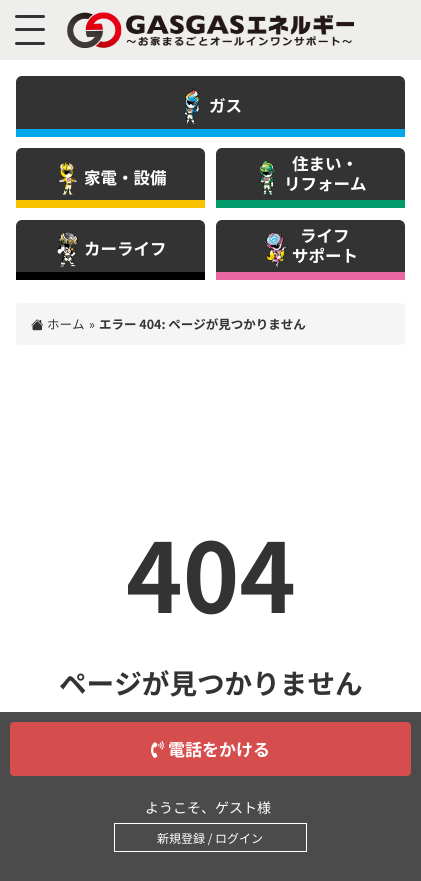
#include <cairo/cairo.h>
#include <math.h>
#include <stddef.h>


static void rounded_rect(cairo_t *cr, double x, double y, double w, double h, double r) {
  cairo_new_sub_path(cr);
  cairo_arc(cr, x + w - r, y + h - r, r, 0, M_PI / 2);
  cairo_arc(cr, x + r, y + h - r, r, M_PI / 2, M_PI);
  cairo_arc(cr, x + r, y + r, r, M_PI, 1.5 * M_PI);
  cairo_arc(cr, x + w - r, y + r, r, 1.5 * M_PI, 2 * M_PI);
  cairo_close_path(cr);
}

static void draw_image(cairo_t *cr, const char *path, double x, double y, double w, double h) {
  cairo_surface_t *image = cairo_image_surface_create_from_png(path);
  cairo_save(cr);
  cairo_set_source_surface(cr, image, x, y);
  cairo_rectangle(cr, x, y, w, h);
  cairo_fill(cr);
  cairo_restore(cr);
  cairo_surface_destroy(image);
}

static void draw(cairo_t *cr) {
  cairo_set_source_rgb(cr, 1, 1, 1);
  cairo_paint(cr);
  cairo_set_source_rgb(cr, 238 / 255.0, 238 / 255.0, 236 / 255.0);
  cairo_rectangle(cr, 0, 0, 421, 60);
  cairo_fill(cr);
  cairo_set_source_rgb(cr, 51 / 255.0, 51 / 255.0, 51 / 255.0);
  rounded_rect(cr, 15, 15, 30, 3, 1.5);
  cairo_fill(cr);
  rounded_rect(cr, 15, 28, 30, 3, 1.5);
  cairo_fill(cr);
  rounded_rect(cr, 15, 42, 30, 3, 1.5);
  cairo_fill(cr);
  draw_image(cr, "images/1.png", 67, 12, 288, 36);
  rounded_rect(cr, 16, 76, 389, 61, 6);
  cairo_fill(cr);
  draw_image(cr, "images/2.png", 184, 89, 16, 35);
  cairo_set_source_rgb(cr, 0, 168 / 255.0, 235 / 255.0);
  cairo_rectangle(cr, 16, 129, 389, 8);
  cairo_fill(cr);
  cairo_set_source_rgb(cr, 51 / 255.0, 51 / 255.0, 51 / 255.0);
  rounded_rect(cr, 16, 148, 189, 60, 6);
  cairo_fill(cr);
  draw_image(cr, "images/3.png", 57, 160, 21, 35);
  cairo_set_source_rgb(cr, 250 / 255.0, 193 / 255.0, 0);
  cairo_rectangle(cr, 16, 200, 189, 8);
  cairo_fill(cr);
  cairo_set_source_rgb(cr, 51 / 255.0, 51 / 255.0, 51 / 255.0);
  rounded_rect(cr, 216, 148, 189, 60, 6);
  cairo_fill(cr);
  draw_image(cr, "images/4.png", 260, 160, 14, 35);
  cairo_set_source_rgb(cr, 0, 155 / 255.0, 104 / 255.0);
  cairo_rectangle(cr, 216, 200, 189, 8);
  cairo_fill(cr);
  cairo_set_source_rgb(cr, 51 / 255.0, 51 / 255.0, 51 / 255.0);
  rounded_rect(cr, 16, 220, 189, 60, 6);
  cairo_fill(cr);
  draw_image(cr, "images/5.png", 57, 232, 21, 35);
  cairo_set_source_rgb(cr, 0, 0, 0);
  cairo_rectangle(cr, 16, 272, 189, 8);
  cairo_fill(cr);
  cairo_set_source_rgb(cr, 51 / 255.0, 51 / 255.0, 51 / 255.0);
  rounded_rect(cr, 216, 220, 189, 60, 6);
  cairo_fill(cr);
  draw_image(cr, "images/6.png", 263, 232, 25, 35);
  cairo_set_source_rgb(cr, 234 / 255.0, 104 / 255.0, 162 / 255.0);
  cairo_rectangle(cr, 216, 272, 189, 8);
  cairo_fill(cr);
  cairo_set_source_rgb(cr, 245 / 255.0, 245 / 255.0, 245 / 255.0);
  rounded_rect(cr, 16, 303, 389, 42, 4);
  cairo_fill(cr);
  draw_image(cr, "images/7.png", 31, 319, 13, 12);
  cairo_set_source_rgb(cr, 75 / 255.0, 75 / 255.0, 75 / 255.0);
  cairo_rectangle(cr, 0, 712, 421, 169);
  cairo_fill(cr);
  cairo_set_source_rgb(cr, 214 / 255.0, 77 / 255.0, 77 / 255.0);
  rounded_rect(cr, 10, 722, 401, 54, 4);
  cairo_fill(cr);
  draw_image(cr, "images/8.png", 151, 741, 13, 18);
  cairo_rectangle(cr, 114.5, 823.5, 192, 28);
  cairo_set_source_rgb(cr, 1, 1, 1);
  cairo_set_line_width(cr, 1);
  cairo_stroke(cr);
  cairo_select_font_face(cr, "Noto Sans JP", CAIRO_FONT_SLANT_NORMAL, CAIRO_FONT_WEIGHT_BOLD);
  cairo_set_font_size(cr, 16.5);
  cairo_move_to(cr, 209, 112);
  cairo_show_text(cr, "ガス");
  cairo_move_to(cr, 84, 184);
  cairo_show_text(cr, "家電・設備");
  cairo_move_to(cr, 292, 170);
  cairo_show_text(cr, "住まい・");
  cairo_move_to(cr, 284, 190);
  cairo_show_text(cr, "リフォーム");
  cairo_move_to(cr, 84, 255);
  cairo_show_text(cr, "カーライフ");
  cairo_move_to(cr, 300, 242);
  cairo_show_text(cr, "ライフ");
  cairo_move_to(cr, 292, 262);
  cairo_show_text(cr, "サポート");
  cairo_select_font_face(cr, "Noto Sans JP", CAIRO_FONT_SLANT_NORMAL, CAIRO_FONT_WEIGHT_NORMAL);
  cairo_set_font_size(cr, 12.5);
  cairo_set_source_rgb(cr, 51 / 255.0, 51 / 255.0, 51 / 255.0);
  cairo_move_to(cr, 47, 329);
  cairo_show_text(cr, "ホーム");
  cairo_move_to(cr, 89, 329);
  cairo_show_text(cr, "»");
  cairo_select_font_face(cr, "Noto Sans JP", CAIRO_FONT_SLANT_NORMAL, CAIRO_FONT_WEIGHT_BOLD);
  cairo_move_to(cr, 99, 329);
  cairo_show_text(cr, "エラー 404: ページが見つかりません");
  cairo_set_font_size(cr, 96);
  cairo_move_to(cr, 126, 613);
  cairo_show_text(cr, "404");
  cairo_set_font_size(cr, 27.6);
  cairo_move_to(cr, 59, 694);
  cairo_show_text(cr, "ページが見つかりません");
  cairo_set_font_size(cr, 17);
  cairo_set_source_rgb(cr, 1, 1, 1);
  cairo_move_to(cr, 168, 756);
  cairo_show_text(cr, "電話をかける");
  cairo_select_font_face(cr, "Noto Sans JP", CAIRO_FONT_SLANT_NORMAL, CAIRO_FONT_WEIGHT_NORMAL);
  cairo_set_font_size(cr, 14);
  cairo_move_to(cr, 145, 813);
  cairo_show_text(cr, "ようこそ、ゲスト様");
  cairo_set_font_size(cr, 12);
  cairo_move_to(cr, 157, 843);
  cairo_show_text(cr, "新規登録 / ログイン");
}

int main(void) {
  cairo_surface_t *surface = cairo_image_surface_create(CAIRO_FORMAT_RGB24, 421, 881);
  cairo_t *cr = cairo_create(surface);
  cairo_font_options_t *options = cairo_font_options_create();
  cairo_font_options_set_hint_metrics(options, CAIRO_HINT_METRICS_OFF);
  cairo_font_options_set_hint_style(options, CAIRO_HINT_STYLE_NONE);
  cairo_set_font_options(cr, options);
  cairo_set_miter_limit(cr, 4);
  draw(cr);
  cairo_surface_write_to_png(surface, "out.png");
  cairo_font_options_destroy(options);
  cairo_destroy(cr);
  cairo_surface_destroy(surface);
  return 0;
}
